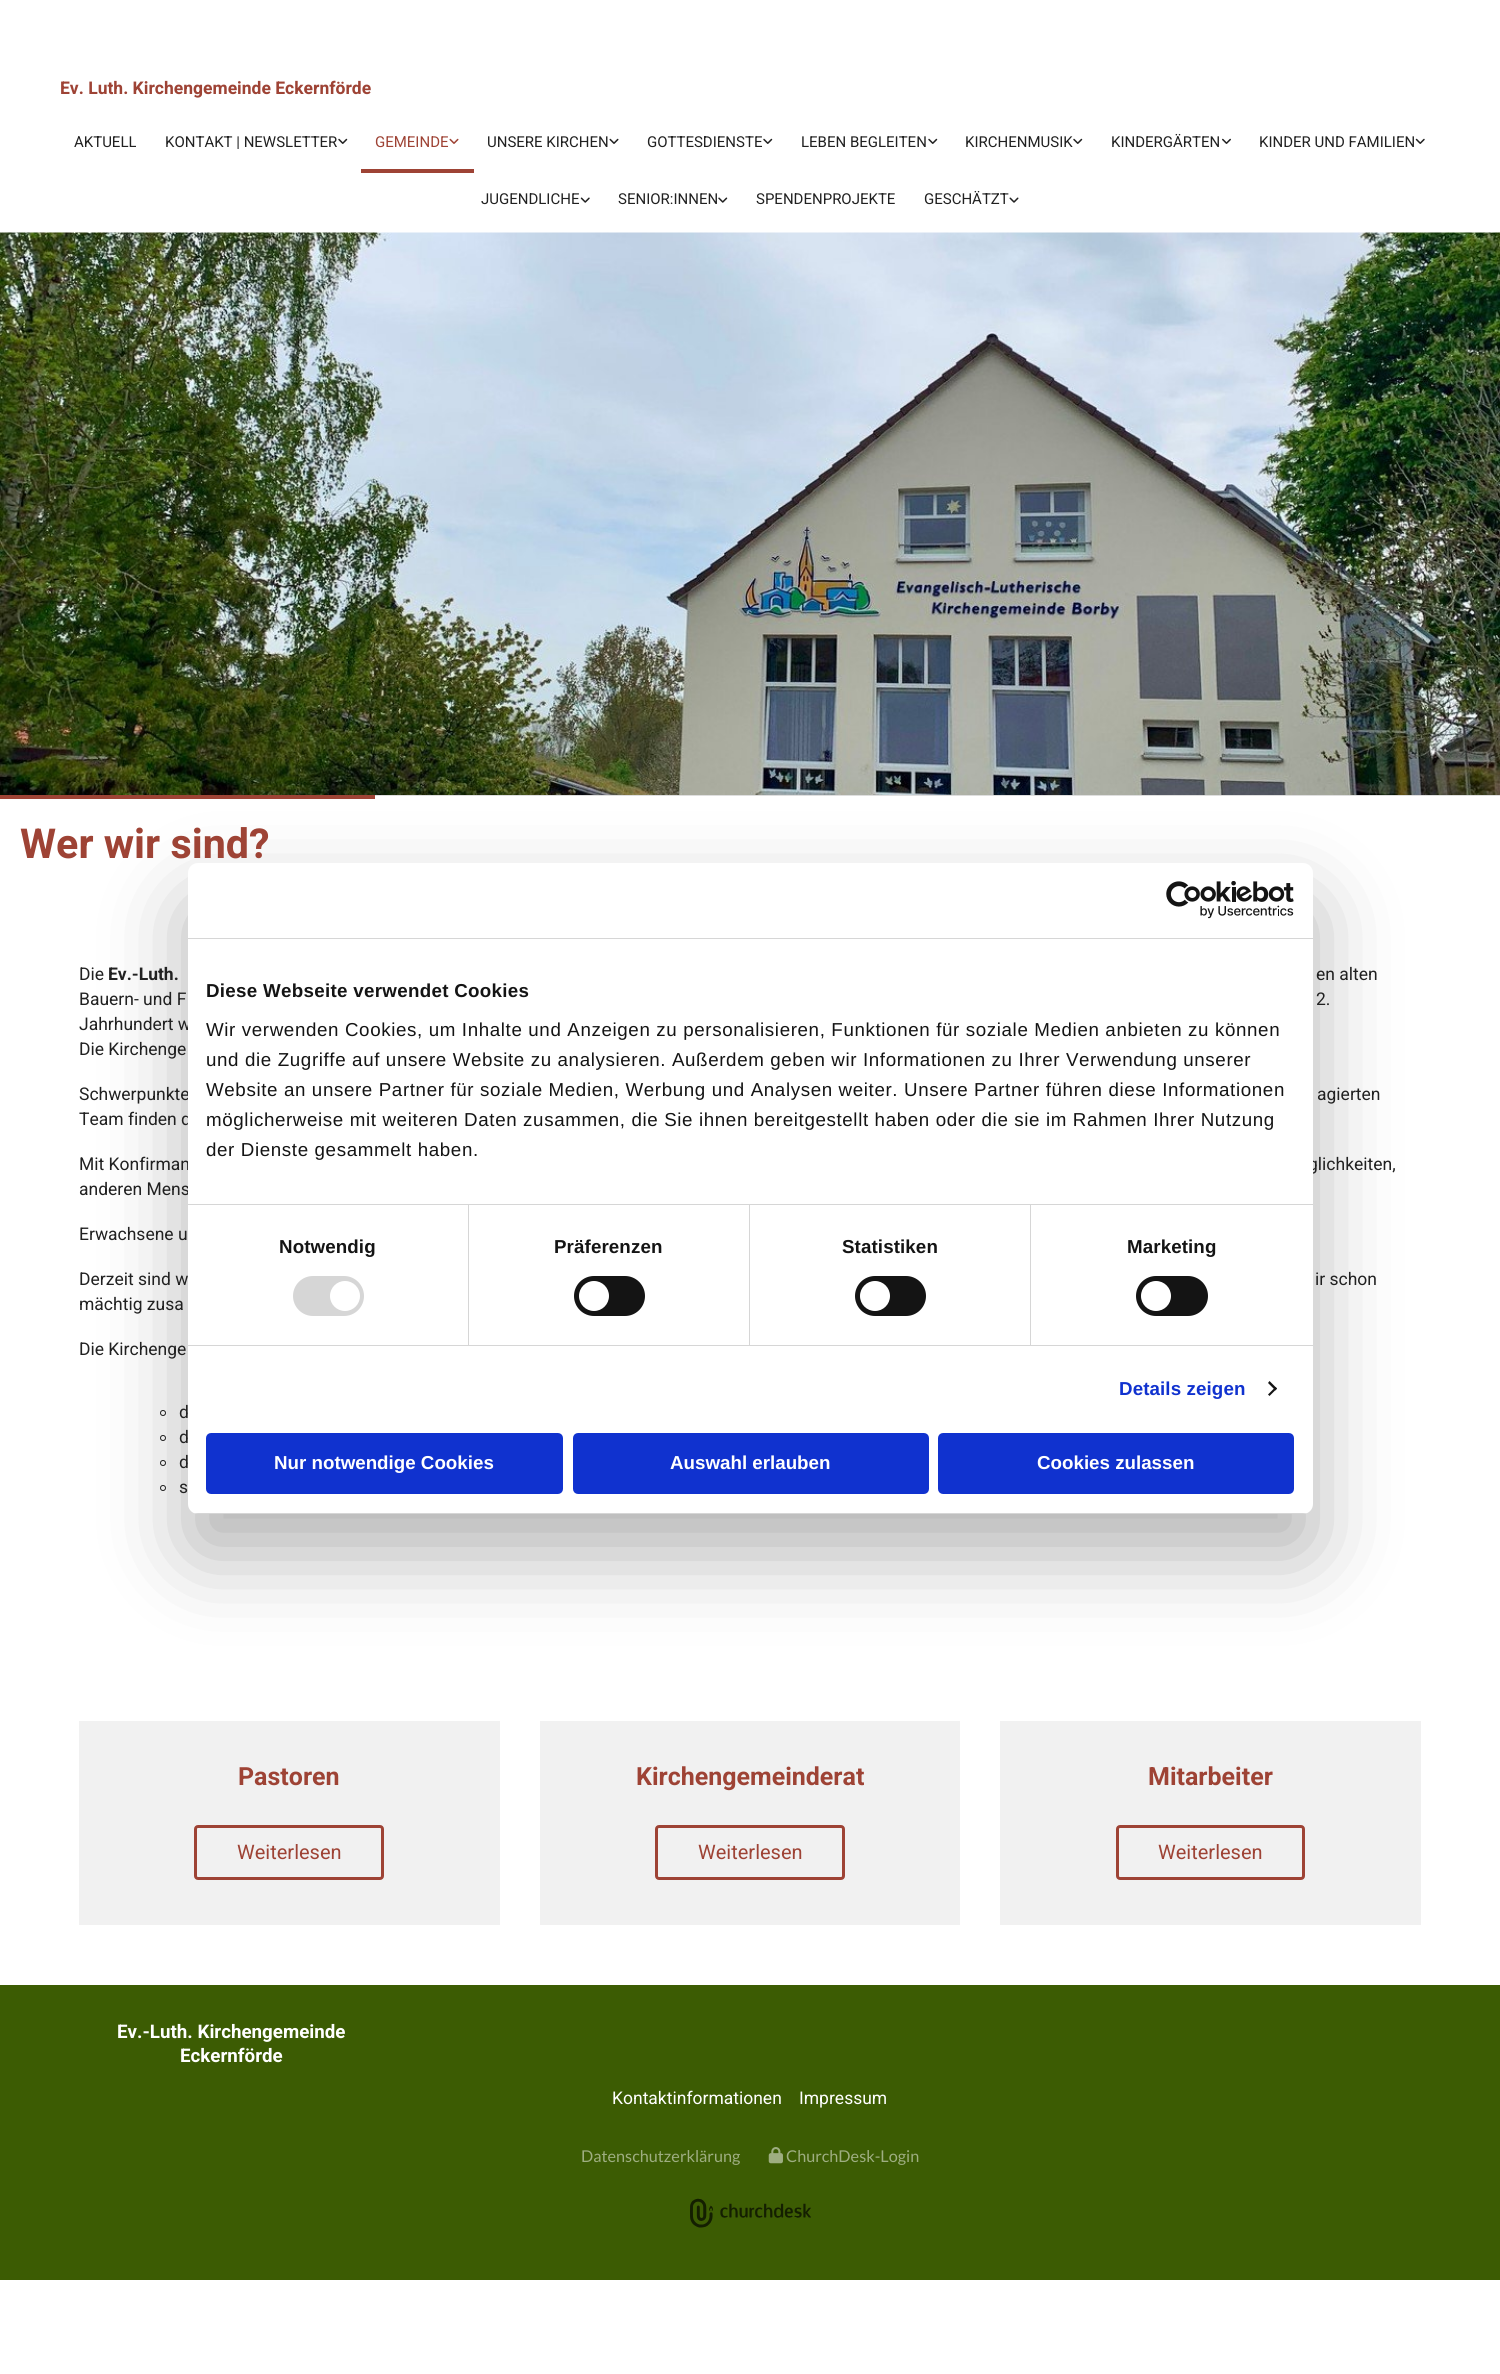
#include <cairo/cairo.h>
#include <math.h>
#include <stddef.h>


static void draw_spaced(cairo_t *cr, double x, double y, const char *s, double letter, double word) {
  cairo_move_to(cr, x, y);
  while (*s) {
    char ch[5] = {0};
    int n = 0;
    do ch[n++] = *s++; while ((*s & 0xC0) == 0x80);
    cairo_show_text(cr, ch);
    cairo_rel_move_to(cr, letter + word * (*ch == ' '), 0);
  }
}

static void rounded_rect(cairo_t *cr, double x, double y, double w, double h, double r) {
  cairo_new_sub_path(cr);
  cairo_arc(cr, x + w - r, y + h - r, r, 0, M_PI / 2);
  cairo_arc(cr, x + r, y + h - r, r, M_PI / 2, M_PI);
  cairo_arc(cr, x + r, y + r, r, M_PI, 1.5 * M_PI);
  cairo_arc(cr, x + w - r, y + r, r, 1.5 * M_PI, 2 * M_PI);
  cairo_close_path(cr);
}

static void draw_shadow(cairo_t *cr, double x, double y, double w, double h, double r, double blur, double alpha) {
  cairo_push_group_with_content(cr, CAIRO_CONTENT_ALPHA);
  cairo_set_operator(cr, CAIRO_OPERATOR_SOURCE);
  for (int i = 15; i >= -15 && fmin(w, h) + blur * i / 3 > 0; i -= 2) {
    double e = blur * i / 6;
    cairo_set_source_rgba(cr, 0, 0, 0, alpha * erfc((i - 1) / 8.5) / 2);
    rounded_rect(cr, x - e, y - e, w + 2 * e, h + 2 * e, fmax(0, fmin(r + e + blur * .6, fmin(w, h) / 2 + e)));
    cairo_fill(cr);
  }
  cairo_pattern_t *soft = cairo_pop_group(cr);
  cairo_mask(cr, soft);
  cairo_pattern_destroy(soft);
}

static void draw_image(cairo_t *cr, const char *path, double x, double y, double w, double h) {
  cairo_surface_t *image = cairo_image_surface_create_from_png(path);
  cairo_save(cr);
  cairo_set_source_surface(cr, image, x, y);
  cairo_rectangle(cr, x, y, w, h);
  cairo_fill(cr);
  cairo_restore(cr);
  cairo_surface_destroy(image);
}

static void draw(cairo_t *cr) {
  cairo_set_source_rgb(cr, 1, 1, 1);
  cairo_paint(cr);
  draw_image(cr, "images/1.png", 338, 138, 10, 6);
  cairo_set_source_rgb(cr, 158 / 255.0, 67 / 255.0, 53 / 255.0);
  cairo_rectangle(cr, 361, 169, 113, 4);
  cairo_fill(cr);
  draw_image(cr, "images/2.png", 449, 138, 10, 6);
  draw_image(cr, "images/3.png", 609, 138, 10, 6);
  draw_image(cr, "images/1.png", 763, 138, 10, 6);
  draw_image(cr, "images/1.png", 928, 138, 10, 6);
  draw_image(cr, "images/4.png", 1222, 138, 9, 6);
  draw_image(cr, "images/5.png", 1415, 138, 10, 6);
  draw_image(cr, "images/6.png", 580, 197, 10, 6);
  draw_image(cr, "images/7.png", 718, 197, 10, 6);
  draw_image(cr, "images/8.png", 1009, 197, 10, 6);
  draw_image(cr, "images/9.png", 0, 232, 1500, 563);
  cairo_set_source_rgb(cr, 222 / 255.0, 222 / 255.0, 222 / 255.0);
  cairo_rectangle(cr, 375, 795, 1125, 1);
  cairo_fill(cr);
  cairo_set_source_rgb(cr, 158 / 255.0, 67 / 255.0, 53 / 255.0);
  cairo_rectangle(cr, 0, 795, 375, 4);
  cairo_fill(cr);
  cairo_arc(cr, 163, 1413, 2.5, 0, 2 * M_PI);
  cairo_set_source_rgb(cr, 33 / 255.0, 33 / 255.0, 33 / 255.0);
  cairo_set_line_width(cr, 1);
  cairo_stroke(cr);
  cairo_arc(cr, 163, 1438, 2.5, 0, 2 * M_PI);
  cairo_stroke(cr);
  cairo_arc(cr, 163, 1463, 2.5, 0, 2 * M_PI);
  cairo_stroke(cr);
  cairo_arc(cr, 163, 1488, 2.5, 0, 2 * M_PI);
  cairo_stroke(cr);
  cairo_set_source_rgb(cr, 241 / 255.0, 241 / 255.0, 241 / 255.0);
  cairo_rectangle(cr, 79, 1721, 421, 204);
  cairo_fill(cr);
  rounded_rect(cr, 195.5, 1826.5, 187, 52, 2.5);
  cairo_set_source_rgb(cr, 158 / 255.0, 67 / 255.0, 53 / 255.0);
  cairo_set_line_width(cr, 3);
  cairo_stroke(cr);
  cairo_set_source_rgb(cr, 241 / 255.0, 241 / 255.0, 241 / 255.0);
  cairo_rectangle(cr, 540, 1721, 420, 204);
  cairo_fill(cr);
  rounded_rect(cr, 656.5, 1826.5, 187, 52, 2.5);
  cairo_set_source_rgb(cr, 158 / 255.0, 67 / 255.0, 53 / 255.0);
  cairo_stroke(cr);
  cairo_set_source_rgb(cr, 241 / 255.0, 241 / 255.0, 241 / 255.0);
  cairo_rectangle(cr, 1000, 1721, 421, 204);
  cairo_fill(cr);
  rounded_rect(cr, 1117.5, 1826.5, 186, 52, 2.5);
  cairo_set_source_rgb(cr, 158 / 255.0, 67 / 255.0, 53 / 255.0);
  cairo_stroke(cr);
  cairo_set_source_rgb(cr, 60 / 255.0, 92 / 255.0, 3 / 255.0);
  cairo_rectangle(cr, 0, 1985, 1500, 295);
  cairo_fill(cr);
  draw_image(cr, "images/10.png", 768, 2147, 15, 17);
  draw_image(cr, "images/11.png", 690, 2198, 121, 30);
  cairo_set_source_rgb(cr, 0, 0, 0);
  draw_shadow(cr, 188, 903, 1125, 651, 10, 42.5, 0.3);
  cairo_select_font_face(cr, "Heebo", CAIRO_FONT_SLANT_NORMAL, CAIRO_FONT_WEIGHT_BOLD);
  cairo_set_font_size(cr, 17.5);
  cairo_set_source_rgb(cr, 158 / 255.0, 67 / 255.0, 53 / 255.0);
  cairo_move_to(cr, 60, 94);
  cairo_show_text(cr, "Ev. Luth. Kirchengemeinde Eckernförde");
  cairo_select_font_face(cr, "Roboto", CAIRO_FONT_SLANT_NORMAL, CAIRO_FONT_WEIGHT_NORMAL);
  cairo_set_font_size(cr, 15);
  cairo_set_source_rgb(cr, 33 / 255.0, 33 / 255.0, 33 / 255.0);
  cairo_move_to(cr, 74, 147);
  cairo_show_text(cr, "AKTUELL");
  cairo_move_to(cr, 165, 147);
  cairo_show_text(cr, "KONTAKT | NEWSLETTER");
  cairo_set_source_rgb(cr, 158 / 255.0, 67 / 255.0, 53 / 255.0);
  cairo_move_to(cr, 375, 147);
  cairo_show_text(cr, "GEMEINDE");
  cairo_set_source_rgb(cr, 33 / 255.0, 33 / 255.0, 33 / 255.0);
  cairo_move_to(cr, 487, 147);
  cairo_show_text(cr, "UNSERE KIRCHEN");
  cairo_move_to(cr, 647, 147);
  cairo_show_text(cr, "GOTTESDIENSTE");
  cairo_move_to(cr, 801, 147);
  cairo_show_text(cr, "LEBEN BEGLEITEN");
  cairo_move_to(cr, 965, 147);
  cairo_show_text(cr, "KIRCHENMUSIK");
  draw_image(cr, "images/1.png", 1073, 138, 10, 6);
  cairo_move_to(cr, 1111, 147);
  cairo_show_text(cr, "KINDERGÄRTEN");
  cairo_move_to(cr, 1259, 147);
  cairo_show_text(cr, "KINDER UND FAMILIEN");
  cairo_move_to(cr, 481, 204);
  cairo_show_text(cr, "JUGENDLICHE");
  cairo_move_to(cr, 618, 204);
  cairo_show_text(cr, "SENIOR:INNEN");
  cairo_move_to(cr, 756, 204);
  cairo_show_text(cr, "SPENDENPROJEKTE");
  cairo_move_to(cr, 924, 204);
  cairo_show_text(cr, "GESCHÄTZT");
  cairo_select_font_face(cr, "Heebo", CAIRO_FONT_SLANT_NORMAL, CAIRO_FONT_WEIGHT_BOLD);
  cairo_set_font_size(cr, 41.25);
  cairo_set_source_rgb(cr, 158 / 255.0, 67 / 255.0, 53 / 255.0);
  cairo_move_to(cr, 20, 858);
  cairo_show_text(cr, "Wer wir sind?");
  cairo_select_font_face(cr, "Roboto", CAIRO_FONT_SLANT_NORMAL, CAIRO_FONT_WEIGHT_NORMAL);
  cairo_set_font_size(cr, 17.5);
  cairo_set_source_rgb(cr, 33 / 255.0, 33 / 255.0, 33 / 255.0);
  cairo_move_to(cr, 79, 980);
  cairo_show_text(cr, "Die");
  cairo_select_font_face(cr, "Roboto", CAIRO_FONT_SLANT_NORMAL, CAIRO_FONT_WEIGHT_BOLD);
  cairo_move_to(cr, 108, 980);
  cairo_show_text(cr, "Ev.-Luth.");
  cairo_select_font_face(cr, "Roboto", CAIRO_FONT_SLANT_NORMAL, CAIRO_FONT_WEIGHT_NORMAL);
  cairo_move_to(cr, 1316, 980);
  cairo_show_text(cr, "en alten");
  cairo_move_to(cr, 79, 1005);
  cairo_show_text(cr, "Bauern- und F");
  cairo_move_to(cr, 1316, 1005);
  cairo_show_text(cr, "2.");
  cairo_move_to(cr, 79, 1030);
  cairo_show_text(cr, "Jahrhundert w");
  cairo_move_to(cr, 79, 1055);
  cairo_show_text(cr, "Die Kirchenge");
  cairo_move_to(cr, 79, 1100);
  cairo_show_text(cr, "Schwerpunkte");
  cairo_move_to(cr, 1317, 1100);
  cairo_show_text(cr, "agierten");
  cairo_move_to(cr, 79, 1125);
  cairo_show_text(cr, "Team finden d");
  cairo_move_to(cr, 79, 1170);
  cairo_show_text(cr, "Mit Konfirman");
  cairo_move_to(cr, 1308, 1170);
  cairo_show_text(cr, "glichkeiten,");
  cairo_move_to(cr, 79, 1195);
  cairo_show_text(cr, "anderen Mens");
  cairo_move_to(cr, 79, 1240);
  cairo_show_text(cr, "Erwachsene u");
  cairo_move_to(cr, 79, 1285);
  cairo_show_text(cr, "Derzeit sind w");
  cairo_move_to(cr, 1315, 1285);
  cairo_show_text(cr, "ir schon");
  cairo_move_to(cr, 79, 1310);
  cairo_show_text(cr, "mächtig zusa");
  cairo_move_to(cr, 79, 1355);
  cairo_show_text(cr, "Die Kirchenge");
  cairo_move_to(cr, 179, 1418);
  cairo_show_text(cr, "d");
  cairo_move_to(cr, 179, 1443);
  cairo_show_text(cr, "d");
  cairo_move_to(cr, 179, 1468);
  cairo_show_text(cr, "d");
  cairo_move_to(cr, 179, 1493);
  cairo_show_text(cr, "s");
  cairo_select_font_face(cr, "Roboto", CAIRO_FONT_SLANT_NORMAL, CAIRO_FONT_WEIGHT_BOLD);
  cairo_set_font_size(cr, 25);
  cairo_set_source_rgb(cr, 158 / 255.0, 67 / 255.0, 53 / 255.0);
  cairo_move_to(cr, 238, 1785);
  cairo_show_text(cr, "Pastoren");
  cairo_select_font_face(cr, "Roboto", CAIRO_FONT_SLANT_NORMAL, CAIRO_FONT_WEIGHT_NORMAL);
  cairo_set_font_size(cr, 20);
  cairo_move_to(cr, 237, 1859);
  cairo_show_text(cr, "Weiterlesen");
  cairo_select_font_face(cr, "Roboto", CAIRO_FONT_SLANT_NORMAL, CAIRO_FONT_WEIGHT_BOLD);
  cairo_set_font_size(cr, 25);
  cairo_move_to(cr, 636, 1785);
  cairo_show_text(cr, "Kirchengemeinderat");
  cairo_select_font_face(cr, "Roboto", CAIRO_FONT_SLANT_NORMAL, CAIRO_FONT_WEIGHT_NORMAL);
  cairo_set_font_size(cr, 20);
  cairo_move_to(cr, 698, 1859);
  cairo_show_text(cr, "Weiterlesen");
  cairo_select_font_face(cr, "Roboto", CAIRO_FONT_SLANT_NORMAL, CAIRO_FONT_WEIGHT_BOLD);
  cairo_set_font_size(cr, 25);
  cairo_move_to(cr, 1148, 1785);
  cairo_show_text(cr, "Mitarbeiter");
  cairo_select_font_face(cr, "Roboto", CAIRO_FONT_SLANT_NORMAL, CAIRO_FONT_WEIGHT_NORMAL);
  cairo_set_font_size(cr, 20);
  cairo_move_to(cr, 1158, 1859);
  cairo_show_text(cr, "Weiterlesen");
  cairo_select_font_face(cr, "Roboto", CAIRO_FONT_SLANT_NORMAL, CAIRO_FONT_WEIGHT_BOLD);
  cairo_set_font_size(cr, 18.75);
  cairo_set_source_rgb(cr, 1, 1, 1);
  cairo_move_to(cr, 117, 2038);
  cairo_show_text(cr, "Ev.-Luth. Kirchengemeinde");
  cairo_move_to(cr, 180, 2062);
  cairo_show_text(cr, "Eckernförde");
  cairo_select_font_face(cr, "Roboto", CAIRO_FONT_SLANT_NORMAL, CAIRO_FONT_WEIGHT_NORMAL);
  cairo_set_font_size(cr, 17.5);
  cairo_move_to(cr, 612, 2104);
  cairo_show_text(cr, "Kontaktinformationen");
  cairo_move_to(cr, 799, 2104);
  cairo_show_text(cr, "Impressum");
  cairo_select_font_face(cr, "Lato", CAIRO_FONT_SLANT_NORMAL, CAIRO_FONT_WEIGHT_NORMAL);
  cairo_set_font_size(cr, 16.25);
  cairo_set_source_rgb(cr, 158 / 255.0, 174 / 255.0, 129 / 255.0);
  cairo_move_to(cr, 581, 2162);
  cairo_show_text(cr, "Datenschutzerklärung");
  cairo_move_to(cr, 786, 2162);
  cairo_show_text(cr, "ChurchDesk-Login");
  cairo_set_source_rgb(cr, 1, 1, 1);
  rounded_rect(cr, 188, 863, 1125, 651, 10);
  cairo_fill(cr);
  cairo_set_source_rgb(cr, 214 / 255.0, 214 / 255.0, 214 / 255.0);
  cairo_rectangle(cr, 188, 938, 1125, 1);
  cairo_fill(cr);
  draw_image(cr, "images/12.png", 1166, 881, 128, 38);
  cairo_rectangle(cr, 188, 1204, 1125, 1);
  cairo_fill(cr);
  cairo_select_font_face(cr, "Liberation Sans", CAIRO_FONT_SLANT_NORMAL, CAIRO_FONT_WEIGHT_BOLD);
  cairo_set_font_size(cr, 18.75);
  cairo_set_source_rgb(cr, 20 / 255.0, 20 / 255.0, 20 / 255.0);
  draw_spaced(cr, 206, 997, "Diese Webseite verwendet Cookies", 0.3, 0);
  cairo_select_font_face(cr, "Liberation Sans", CAIRO_FONT_SLANT_NORMAL, CAIRO_FONT_WEIGHT_NORMAL);
  draw_spaced(cr, 206, 1036, "Wir verwenden Cookies, um Inhalte und Anzeigen zu personalisieren, Funktionen für soziale Medien anbieten zu können", 0.62, 0);
  draw_spaced(cr, 206, 1066, "und die Zugriffe auf unsere Website zu analysieren. Außerdem geben wir Informationen zu Ihrer Verwendung unserer", 0.62, 0);
  draw_spaced(cr, 206, 1096, "Website an unsere Partner für soziale Medien, Werbung und Analysen weiter. Unsere Partner führen diese Informationen", 0.62, 0);
  draw_spaced(cr, 206, 1126, "möglicherweise mit weiteren Daten zusammen, die Sie ihnen bereitgestellt haben oder die sie im Rahmen Ihrer Nutzung", 0.62, 0);
  draw_spaced(cr, 206, 1156, "der Dienste gesammelt haben.", 0.62, 0);
  cairo_set_source_rgb(cr, 214 / 255.0, 214 / 255.0, 214 / 255.0);
  cairo_rectangle(cr, 188, 1345, 1125, 1);
  cairo_fill(cr);
  cairo_rectangle(cr, 468, 1205, 1, 140);
  cairo_fill(cr);
  cairo_select_font_face(cr, "Liberation Sans", CAIRO_FONT_SLANT_NORMAL, CAIRO_FONT_WEIGHT_BOLD);
  cairo_set_source_rgb(cr, 20 / 255.0, 20 / 255.0, 20 / 255.0);
  draw_spaced(cr, 279, 1253, "Notwendig", 0.1, 0);
  cairo_set_source_rgb(cr, 214 / 255.0, 214 / 255.0, 214 / 255.0);
  rounded_rect(cr, 293, 1276, 71, 40, 20);
  cairo_fill(cr);
  cairo_set_source_rgb(cr, 1, 1, 1);
  cairo_arc(cr, 345, 1296, 15, 0, 2 * M_PI);
  cairo_fill(cr);
  cairo_set_source_rgb(cr, 214 / 255.0, 214 / 255.0, 214 / 255.0);
  cairo_rectangle(cr, 749, 1205, 1, 140);
  cairo_fill(cr);
  cairo_set_source_rgb(cr, 20 / 255.0, 20 / 255.0, 20 / 255.0);
  draw_spaced(cr, 554, 1253, "Präferenzen", 0.1, 0);
  rounded_rect(cr, 574, 1276, 71, 40, 20);
  cairo_fill(cr);
  cairo_set_source_rgb(cr, 1, 1, 1);
  cairo_arc(cr, 594, 1296, 15, 0, 2 * M_PI);
  cairo_fill(cr);
  cairo_set_source_rgb(cr, 214 / 255.0, 214 / 255.0, 214 / 255.0);
  cairo_rectangle(cr, 1030, 1205, 1, 140);
  cairo_fill(cr);
  cairo_set_source_rgb(cr, 20 / 255.0, 20 / 255.0, 20 / 255.0);
  draw_spaced(cr, 842, 1253, "Statistiken", 0.1, 0);
  rounded_rect(cr, 855, 1276, 71, 40, 20);
  cairo_fill(cr);
  cairo_set_source_rgb(cr, 1, 1, 1);
  cairo_arc(cr, 875, 1296, 15, 0, 2 * M_PI);
  cairo_fill(cr);
  cairo_set_source_rgb(cr, 20 / 255.0, 20 / 255.0, 20 / 255.0);
  draw_spaced(cr, 1127, 1253, "Marketing", 0.1, 0);
  rounded_rect(cr, 1136, 1276, 72, 40, 20);
  cairo_fill(cr);
  cairo_set_source_rgb(cr, 1, 1, 1);
  cairo_arc(cr, 1156, 1296, 15, 0, 2 * M_PI);
  cairo_fill(cr);
  cairo_set_source_rgb(cr, 16 / 255.0, 50 / 255.0, 207 / 255.0);
  draw_spaced(cr, 1119, 1395, "Details zeigen", 0.1, 0);
  cairo_set_source_rgb(cr, 20 / 255.0, 20 / 255.0, 20 / 255.0);
  cairo_new_path(cr);
  cairo_move_to(cr, 1269.5, 1381);
  cairo_line_to(cr, 1277, 1388.5);
  cairo_line_to(cr, 1275.5, 1390.5);
  cairo_line_to(cr, 1268, 1383);
  cairo_close_path(cr);
  cairo_fill(cr);
  cairo_new_path(cr);
  cairo_move_to(cr, 1275.5, 1387);
  cairo_line_to(cr, 1277, 1388.5);
  cairo_line_to(cr, 1269.5, 1396);
  cairo_line_to(cr, 1268, 1394.5);
  cairo_close_path(cr);
  cairo_fill(cr);
  cairo_save(cr);
  rounded_rect(cr, 188, 863, 1125, 651, 10);
  cairo_clip(cr);
  cairo_set_source_rgb(cr, 214 / 255.0, 214 / 255.0, 214 / 255.0);
  cairo_rectangle(cr, 188, 1513, 1125, 1);
  cairo_fill(cr);
  cairo_restore(cr);
  cairo_set_source_rgb(cr, 16 / 255.0, 50 / 255.0, 207 / 255.0);
  rounded_rect(cr, 207.5, 1434.5, 354, 58, 3.5);
  cairo_fill_preserve(cr);
  cairo_stroke(cr);
  cairo_set_source_rgb(cr, 1, 1, 1);
  cairo_move_to(cr, 274, 1469);
  cairo_show_text(cr, "Nur notwendige Cookies");
  cairo_set_source_rgb(cr, 16 / 255.0, 50 / 255.0, 207 / 255.0);
  rounded_rect(cr, 574.5, 1434.5, 353, 58, 3.5);
  cairo_fill_preserve(cr);
  cairo_stroke(cr);
  cairo_set_source_rgb(cr, 1, 1, 1);
  cairo_move_to(cr, 670, 1469);
  cairo_show_text(cr, "Auswahl erlauben");
  cairo_set_source_rgb(cr, 16 / 255.0, 50 / 255.0, 207 / 255.0);
  rounded_rect(cr, 939.5, 1434.5, 353, 58, 3.5);
  cairo_fill_preserve(cr);
  cairo_stroke(cr);
  cairo_set_source_rgb(cr, 1, 1, 1);
  cairo_move_to(cr, 1037, 1469);
  cairo_show_text(cr, "Cookies zulassen");
}

int main(void) {
  cairo_surface_t *surface = cairo_image_surface_create(CAIRO_FORMAT_RGB24, 1500, 2374);
  cairo_t *cr = cairo_create(surface);
  cairo_font_options_t *options = cairo_font_options_create();
  cairo_font_options_set_hint_metrics(options, CAIRO_HINT_METRICS_OFF);
  cairo_font_options_set_hint_style(options, CAIRO_HINT_STYLE_NONE);
  cairo_set_font_options(cr, options);
  cairo_set_miter_limit(cr, 4);
  draw(cr);
  cairo_surface_write_to_png(surface, "out.png");
  cairo_font_options_destroy(options);
  cairo_destroy(cr);
  cairo_surface_destroy(surface);
  return 0;
}
